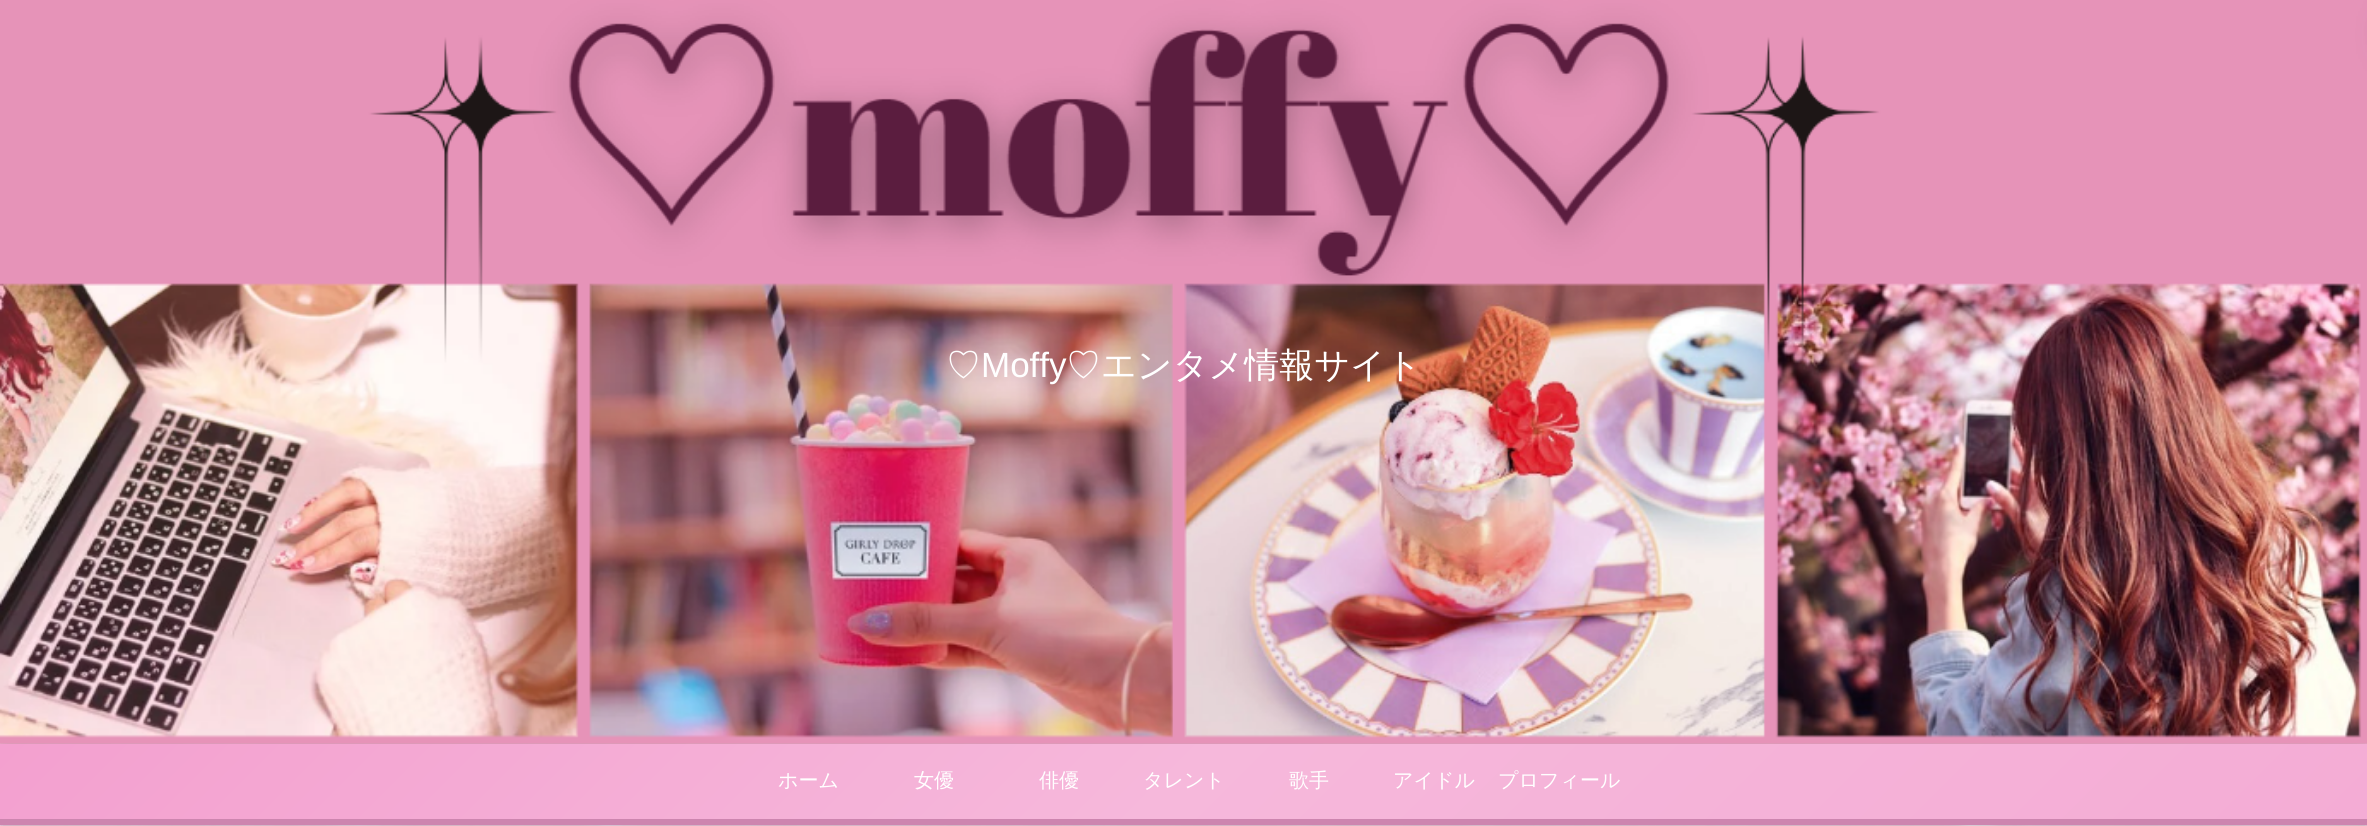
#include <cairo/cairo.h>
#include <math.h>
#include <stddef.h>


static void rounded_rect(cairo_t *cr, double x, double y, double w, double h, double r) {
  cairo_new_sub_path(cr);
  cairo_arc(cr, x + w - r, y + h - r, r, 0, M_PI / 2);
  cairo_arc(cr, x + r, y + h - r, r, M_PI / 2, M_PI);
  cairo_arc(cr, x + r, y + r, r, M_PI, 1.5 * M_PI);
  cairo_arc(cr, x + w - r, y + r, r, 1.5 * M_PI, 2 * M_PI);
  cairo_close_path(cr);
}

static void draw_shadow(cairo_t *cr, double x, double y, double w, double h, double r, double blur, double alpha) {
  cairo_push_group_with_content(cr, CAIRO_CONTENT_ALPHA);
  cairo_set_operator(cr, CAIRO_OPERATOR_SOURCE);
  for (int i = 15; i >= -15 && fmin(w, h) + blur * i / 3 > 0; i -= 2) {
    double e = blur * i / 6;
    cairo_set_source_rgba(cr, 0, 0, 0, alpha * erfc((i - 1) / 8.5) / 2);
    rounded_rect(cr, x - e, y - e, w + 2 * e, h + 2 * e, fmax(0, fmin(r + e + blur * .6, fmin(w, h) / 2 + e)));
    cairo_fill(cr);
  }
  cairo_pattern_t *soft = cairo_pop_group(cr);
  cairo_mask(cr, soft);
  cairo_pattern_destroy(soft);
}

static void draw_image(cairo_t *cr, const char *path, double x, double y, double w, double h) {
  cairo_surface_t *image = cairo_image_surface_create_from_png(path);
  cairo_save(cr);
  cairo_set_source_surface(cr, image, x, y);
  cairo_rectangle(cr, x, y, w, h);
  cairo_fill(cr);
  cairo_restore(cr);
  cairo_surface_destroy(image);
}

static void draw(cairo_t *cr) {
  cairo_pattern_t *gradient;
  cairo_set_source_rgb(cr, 1, 1, 1);
  cairo_paint(cr);
  draw_image(cr, "images/1.png", 0, 743, 2367, 83);
  cairo_set_source_rgb(cr, 0, 0, 0);
  draw_shadow(cr, 0, 4, 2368, 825, 0, 6, 0.2);
  draw_image(cr, "images/2.png", 0, 0, 2367, 744);
  gradient = cairo_pattern_create_linear(573, 171, 1794, 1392);
  cairo_pattern_add_color_stop_rgba(gradient, 0, 243 / 255.0, 160 / 255.0, 207 / 255.0, 1);
  cairo_pattern_add_color_stop_rgba(gradient, 0.5, 246 / 255.0, 184 / 255.0, 219 / 255.0, 1);
  cairo_pattern_add_color_stop_rgba(gradient, 1, 244 / 255.0, 172 / 255.0, 213 / 255.0, 1);
  cairo_set_source(cr, gradient);
  cairo_pattern_destroy(gradient);
  cairo_rectangle(cr, 0, 744, 2367, 75);
  cairo_fill(cr);
  cairo_set_source_rgb(cr, 205 / 255.0, 133 / 255.0, 175 / 255.0);
  cairo_rectangle(cr, 0, 819, 2367, 6);
  cairo_fill(cr);
  cairo_select_font_face(cr, "WenQuanYi Zen Hei Medium", CAIRO_FONT_SLANT_NORMAL, CAIRO_FONT_WEIGHT_NORMAL);
  cairo_set_font_size(cr, 35);
  cairo_set_source_rgb(cr, 1, 1, 1);
  cairo_move_to(cr, 946, 377);
  cairo_show_text(cr, "♡");
  cairo_select_font_face(cr, "Liberation Sans", CAIRO_FONT_SLANT_NORMAL, CAIRO_FONT_WEIGHT_NORMAL);
  cairo_move_to(cr, 981, 377);
  cairo_show_text(cr, "Moffy");
  cairo_select_font_face(cr, "WenQuanYi Zen Hei Medium", CAIRO_FONT_SLANT_NORMAL, CAIRO_FONT_WEIGHT_NORMAL);
  cairo_move_to(cr, 1066, 377);
  cairo_show_text(cr, "♡エンタメ情報サイト");
  cairo_set_font_size(cr, 20);
  cairo_move_to(cr, 778, 787);
  cairo_show_text(cr, "ホーム");
  cairo_move_to(cr, 914, 787);
  cairo_show_text(cr, "女優");
  cairo_move_to(cr, 1039, 787);
  cairo_show_text(cr, "俳優");
  cairo_move_to(cr, 1143, 787);
  cairo_show_text(cr, "タレント");
  cairo_move_to(cr, 1289, 787);
  cairo_show_text(cr, "歌手");
  cairo_move_to(cr, 1393, 787);
  cairo_show_text(cr, "アイドル");
  cairo_move_to(cr, 1498, 787);
  cairo_show_text(cr, "プロフィール");
}

int main(void) {
  cairo_surface_t *surface = cairo_image_surface_create(CAIRO_FORMAT_RGB24, 2367, 826);
  cairo_t *cr = cairo_create(surface);
  cairo_font_options_t *options = cairo_font_options_create();
  cairo_font_options_set_hint_metrics(options, CAIRO_HINT_METRICS_OFF);
  cairo_font_options_set_hint_style(options, CAIRO_HINT_STYLE_NONE);
  cairo_set_font_options(cr, options);
  cairo_set_miter_limit(cr, 4);
  draw(cr);
  cairo_surface_write_to_png(surface, "out.png");
  cairo_font_options_destroy(options);
  cairo_destroy(cr);
  cairo_surface_destroy(surface);
  return 0;
}
